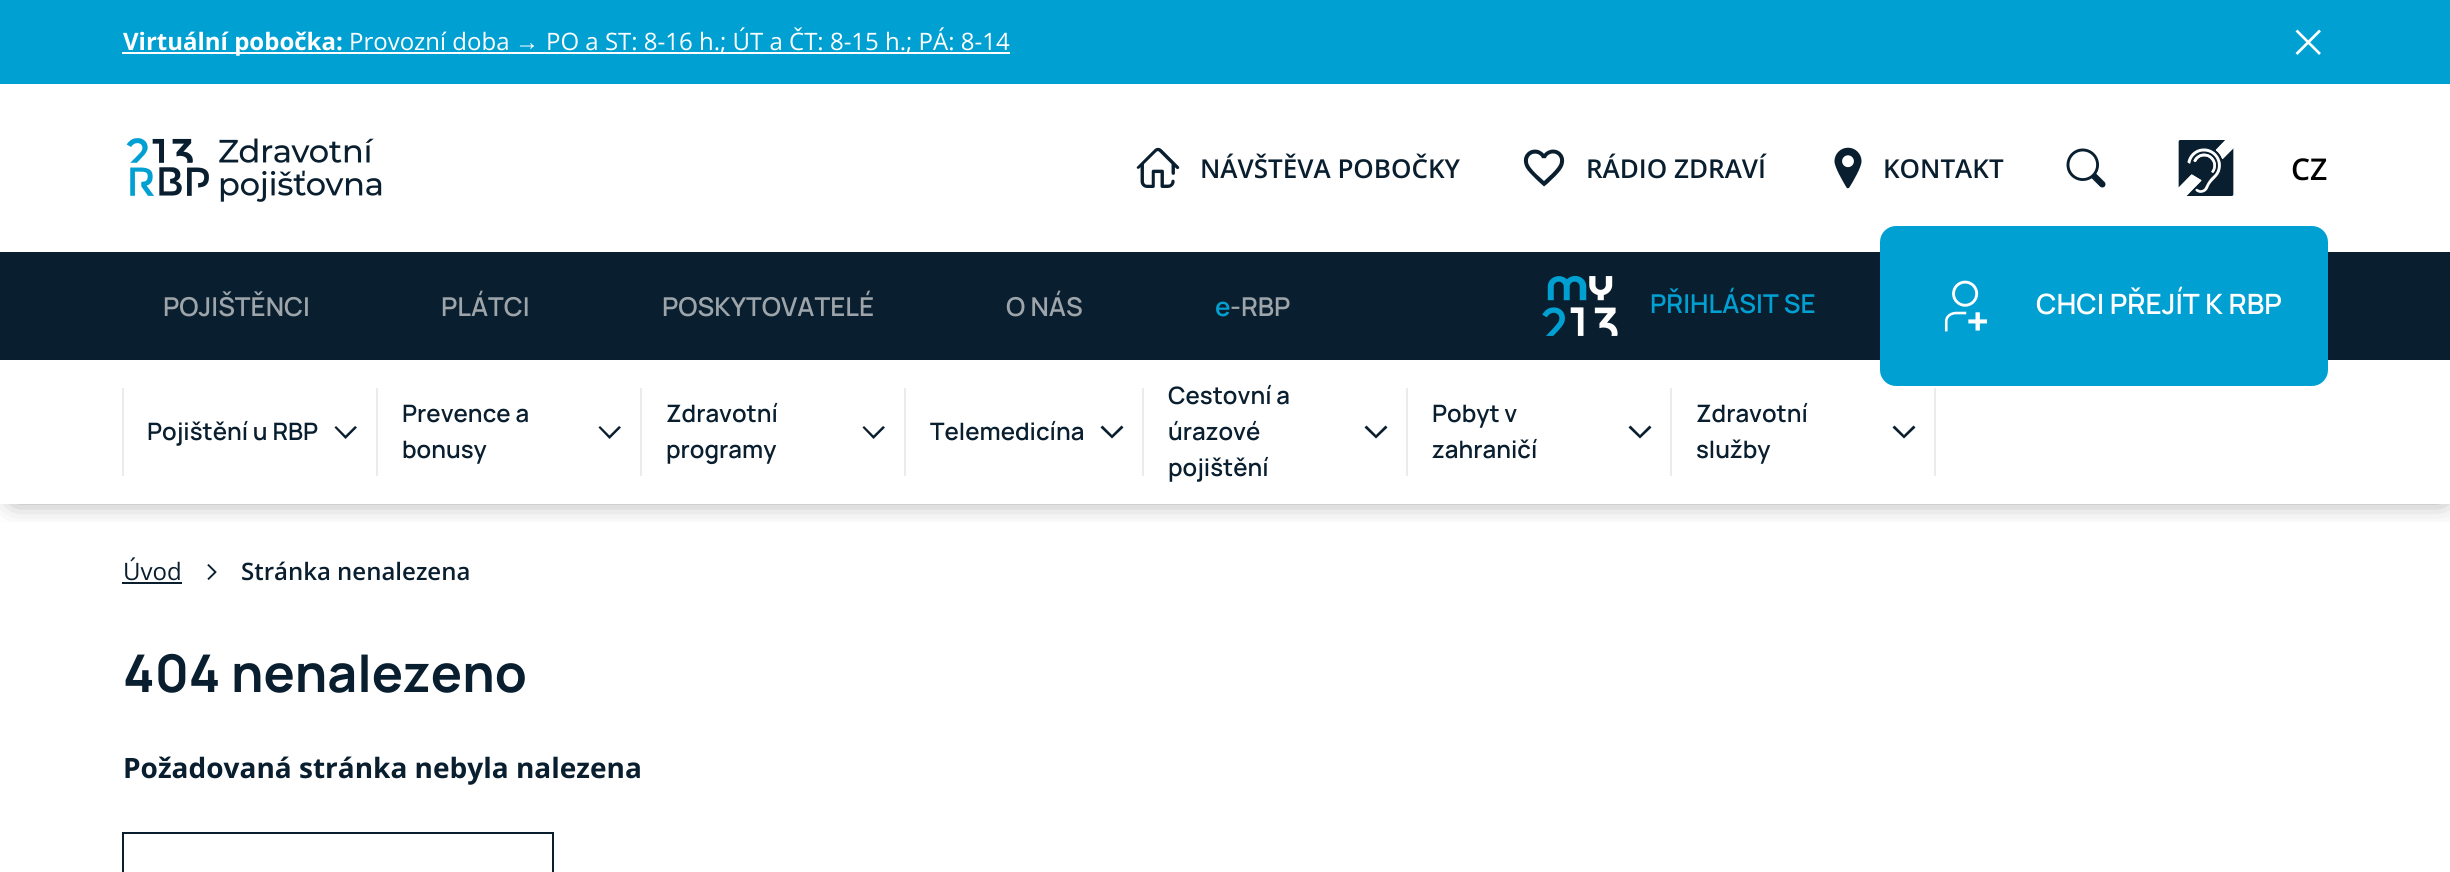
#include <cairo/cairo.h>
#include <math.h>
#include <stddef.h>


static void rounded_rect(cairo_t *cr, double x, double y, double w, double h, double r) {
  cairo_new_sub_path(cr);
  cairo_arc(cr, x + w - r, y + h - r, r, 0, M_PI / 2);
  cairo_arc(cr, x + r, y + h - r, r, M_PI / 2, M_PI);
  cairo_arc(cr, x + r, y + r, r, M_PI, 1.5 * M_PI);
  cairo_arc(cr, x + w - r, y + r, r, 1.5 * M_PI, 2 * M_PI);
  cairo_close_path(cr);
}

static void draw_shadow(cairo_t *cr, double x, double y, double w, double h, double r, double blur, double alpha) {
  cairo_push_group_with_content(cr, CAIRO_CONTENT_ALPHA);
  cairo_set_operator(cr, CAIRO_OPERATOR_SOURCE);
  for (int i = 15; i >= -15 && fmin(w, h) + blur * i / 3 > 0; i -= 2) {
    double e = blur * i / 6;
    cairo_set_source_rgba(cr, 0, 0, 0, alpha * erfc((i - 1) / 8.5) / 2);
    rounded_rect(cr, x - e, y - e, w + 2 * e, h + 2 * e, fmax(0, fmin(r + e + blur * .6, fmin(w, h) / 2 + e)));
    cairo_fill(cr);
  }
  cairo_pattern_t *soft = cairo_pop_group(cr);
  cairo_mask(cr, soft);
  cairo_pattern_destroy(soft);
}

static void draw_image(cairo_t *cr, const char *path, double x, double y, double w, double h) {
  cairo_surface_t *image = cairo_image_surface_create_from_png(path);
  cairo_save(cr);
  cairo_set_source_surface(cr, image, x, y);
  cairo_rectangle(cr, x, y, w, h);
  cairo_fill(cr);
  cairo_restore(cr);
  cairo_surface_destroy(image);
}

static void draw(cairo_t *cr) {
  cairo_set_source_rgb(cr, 1, 1, 1);
  cairo_paint(cr);
  cairo_save(cr);
  cairo_rectangle(cr, 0, 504, 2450, 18);
  cairo_clip(cr);
  cairo_set_source_rgb(cr, 0, 0, 0);
  draw_shadow(cr, 14, 14, 2430, 484, 0, 14, 0.5);
  cairo_restore(cr);
  cairo_set_source_rgb(cr, 0, 160 / 255.0, 211 / 255.0);
  cairo_rectangle(cr, 0, 0, 2450, 84);
  cairo_fill(cr);
  cairo_set_source_rgb(cr, 1, 1, 1);
  cairo_rectangle(cr, 122, 52, 888, 2);
  cairo_fill(cr);
  cairo_new_path(cr);
  cairo_move_to(cr, 2296.5, 30.5);
  cairo_line_to(cr, 2320, 54);
  cairo_move_to(cr, 2320, 30.5);
  cairo_line_to(cr, 2296.5, 54);
  cairo_set_line_width(cr, 2.7);
  cairo_stroke(cr);
  draw_image(cr, "images/1.png", 126, 138, 256, 64);
  draw_image(cr, "images/2.png", 1136, 147, 44, 41);
  draw_image(cr, "images/3.png", 1523, 149, 42, 38);
  draw_image(cr, "images/4.png", 1834, 147, 28, 42);
  draw_image(cr, "images/5.png", 2066, 148, 40, 40);
  draw_image(cr, "images/6.png", 2178, 140, 56, 56);
  cairo_set_source_rgb(cr, 9 / 255.0, 30 / 255.0, 46 / 255.0);
  cairo_rectangle(cr, 0, 252, 2450, 108);
  cairo_fill(cr);
  draw_image(cr, "images/7.png", 1542, 275, 76, 61);
  cairo_set_source_rgb(cr, 0, 160 / 255.0, 211 / 255.0);
  rounded_rect(cr, 1882, 228, 444, 156, 14);
  cairo_fill_preserve(cr);
  cairo_set_line_width(cr, 4);
  cairo_stroke(cr);
  draw_image(cr, "images/8.png", 1944, 280, 44, 52);
  cairo_set_source_rgb(cr, 235 / 255.0, 235 / 255.0, 235 / 255.0);
  cairo_rectangle(cr, 122, 388, 2, 88);
  cairo_fill(cr);
  cairo_set_source_rgb(cr, 9 / 255.0, 30 / 255.0, 46 / 255.0);
  cairo_new_path(cr);
  cairo_move_to(cr, 357, 427.5);
  cairo_line_to(cr, 355, 426);
  cairo_line_to(cr, 345.5, 435.5);
  cairo_line_to(cr, 336, 426);
  cairo_line_to(cr, 334.5, 427.5);
  cairo_line_to(cr, 345.5, 439);
  cairo_close_path(cr);
  cairo_fill(cr);
  cairo_set_source_rgb(cr, 235 / 255.0, 235 / 255.0, 235 / 255.0);
  cairo_rectangle(cr, 376, 388, 2, 88);
  cairo_fill(cr);
  cairo_set_source_rgb(cr, 9 / 255.0, 30 / 255.0, 46 / 255.0);
  cairo_new_path(cr);
  cairo_move_to(cr, 621, 427.5);
  cairo_line_to(cr, 619, 426);
  cairo_line_to(cr, 609.5, 435.5);
  cairo_line_to(cr, 600, 426);
  cairo_line_to(cr, 598.5, 427.5);
  cairo_line_to(cr, 609.5, 439);
  cairo_close_path(cr);
  cairo_fill(cr);
  cairo_set_source_rgb(cr, 235 / 255.0, 235 / 255.0, 235 / 255.0);
  cairo_rectangle(cr, 640, 388, 2, 88);
  cairo_fill(cr);
  cairo_set_source_rgb(cr, 9 / 255.0, 30 / 255.0, 46 / 255.0);
  cairo_new_path(cr);
  cairo_move_to(cr, 885, 427.5);
  cairo_line_to(cr, 883, 426);
  cairo_line_to(cr, 873.5, 435.5);
  cairo_line_to(cr, 864, 426);
  cairo_line_to(cr, 862.5, 427.5);
  cairo_line_to(cr, 873.5, 439);
  cairo_close_path(cr);
  cairo_fill(cr);
  cairo_set_source_rgb(cr, 235 / 255.0, 235 / 255.0, 235 / 255.0);
  cairo_rectangle(cr, 904, 388, 2, 88);
  cairo_fill(cr);
  cairo_set_source_rgb(cr, 9 / 255.0, 30 / 255.0, 46 / 255.0);
  cairo_new_path(cr);
  cairo_move_to(cr, 1123.5, 427.5);
  cairo_line_to(cr, 1121.5, 425.5);
  cairo_line_to(cr, 1112, 435);
  cairo_line_to(cr, 1102.5, 425.5);
  cairo_line_to(cr, 1100.5, 427.5);
  cairo_line_to(cr, 1112, 438.5);
  cairo_close_path(cr);
  cairo_fill(cr);
  cairo_set_source_rgb(cr, 235 / 255.0, 235 / 255.0, 235 / 255.0);
  cairo_rectangle(cr, 1142, 388, 2, 88);
  cairo_fill(cr);
  cairo_set_source_rgb(cr, 9 / 255.0, 30 / 255.0, 46 / 255.0);
  cairo_new_path(cr);
  cairo_move_to(cr, 1387.5, 427.5);
  cairo_line_to(cr, 1385.5, 425.5);
  cairo_line_to(cr, 1376, 435);
  cairo_line_to(cr, 1366.5, 425.5);
  cairo_line_to(cr, 1364.5, 427.5);
  cairo_line_to(cr, 1376, 438.5);
  cairo_close_path(cr);
  cairo_fill(cr);
  cairo_set_source_rgb(cr, 235 / 255.0, 235 / 255.0, 235 / 255.0);
  cairo_rectangle(cr, 1406, 388, 2, 88);
  cairo_fill(cr);
  cairo_set_source_rgb(cr, 9 / 255.0, 30 / 255.0, 46 / 255.0);
  cairo_new_path(cr);
  cairo_move_to(cr, 1651.5, 427.5);
  cairo_line_to(cr, 1649.5, 425.5);
  cairo_line_to(cr, 1640, 435);
  cairo_line_to(cr, 1630.5, 425.5);
  cairo_line_to(cr, 1628.5, 427.5);
  cairo_line_to(cr, 1640, 438.5);
  cairo_close_path(cr);
  cairo_fill(cr);
  cairo_set_source_rgb(cr, 235 / 255.0, 235 / 255.0, 235 / 255.0);
  cairo_rectangle(cr, 1670, 388, 2, 88);
  cairo_fill(cr);
  cairo_set_source_rgb(cr, 9 / 255.0, 30 / 255.0, 46 / 255.0);
  cairo_new_path(cr);
  cairo_move_to(cr, 1915.5, 427.5);
  cairo_line_to(cr, 1913.5, 425.5);
  cairo_line_to(cr, 1904, 435);
  cairo_line_to(cr, 1894.5, 425.5);
  cairo_line_to(cr, 1892.5, 427.5);
  cairo_line_to(cr, 1904, 438.5);
  cairo_close_path(cr);
  cairo_fill(cr);
  cairo_set_source_rgb(cr, 235 / 255.0, 235 / 255.0, 235 / 255.0);
  cairo_rectangle(cr, 1934, 388, 2, 88);
  cairo_fill(cr);
  cairo_set_source_rgb(cr, 9 / 255.0, 30 / 255.0, 46 / 255.0);
  cairo_rectangle(cr, 122, 582, 60, 2);
  cairo_fill(cr);
  draw_image(cr, "images/9.png", 207, 564, 10, 16);
  cairo_rectangle(cr, 123, 833, 430, 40);
  cairo_set_line_width(cr, 2);
  cairo_stroke(cr);
  cairo_select_font_face(cr, "Open Sans", CAIRO_FONT_SLANT_NORMAL, CAIRO_FONT_WEIGHT_BOLD);
  cairo_set_font_size(cr, 24);
  cairo_set_source_rgb(cr, 1, 1, 1);
  cairo_move_to(cr, 123, 50);
  cairo_show_text(cr, "Virtuální pobočka:");
  cairo_select_font_face(cr, "Open Sans", CAIRO_FONT_SLANT_NORMAL, CAIRO_FONT_WEIGHT_NORMAL);
  cairo_move_to(cr, 349, 50);
  cairo_show_text(cr, "Provozní doba");
  cairo_select_font_face(cr, "Liberation Sans", CAIRO_FONT_SLANT_NORMAL, CAIRO_FONT_WEIGHT_NORMAL);
  cairo_move_to(cr, 515, 50);
  cairo_show_text(cr, "→");
  cairo_select_font_face(cr, "Open Sans", CAIRO_FONT_SLANT_NORMAL, CAIRO_FONT_WEIGHT_NORMAL);
  cairo_move_to(cr, 546, 50);
  cairo_show_text(cr, "PO a ST: 8-16 h.; ÚT a ČT: 8-15 h.; PÁ: 8-14");
  cairo_select_font_face(cr, "Open Sans SemiBold", CAIRO_FONT_SLANT_NORMAL, CAIRO_FONT_WEIGHT_NORMAL);
  cairo_set_font_size(cr, 26);
  cairo_set_source_rgb(cr, 9 / 255.0, 30 / 255.0, 46 / 255.0);
  cairo_move_to(cr, 1200, 178);
  cairo_show_text(cr, "NÁVŠTĚVA POBOČKY");
  cairo_move_to(cr, 1586, 178);
  cairo_show_text(cr, "RÁDIO ZDRAVÍ");
  cairo_move_to(cr, 1883, 178);
  cairo_show_text(cr, "KONTAKT");
  cairo_set_font_size(cr, 30);
  cairo_set_source_rgb(cr, 0, 0, 0);
  cairo_move_to(cr, 2291, 180);
  cairo_show_text(cr, "CZ");
  cairo_select_font_face(cr, "Manrope SemiBold", CAIRO_FONT_SLANT_NORMAL, CAIRO_FONT_WEIGHT_NORMAL);
  cairo_set_font_size(cr, 26);
  cairo_set_source_rgb(cr, 157 / 255.0, 165 / 255.0, 171 / 255.0);
  cairo_move_to(cr, 163, 316);
  cairo_show_text(cr, "POJIŠTĚNCI");
  cairo_move_to(cr, 441, 316);
  cairo_show_text(cr, "PLÁTCI");
  cairo_move_to(cr, 662, 316);
  cairo_show_text(cr, "POSKYTOVATELÉ");
  cairo_move_to(cr, 1006, 316);
  cairo_show_text(cr, "O NÁS");
  cairo_set_source_rgb(cr, 0, 160 / 255.0, 211 / 255.0);
  cairo_move_to(cr, 1215, 316);
  cairo_show_text(cr, "e");
  cairo_set_source_rgb(cr, 157 / 255.0, 165 / 255.0, 171 / 255.0);
  cairo_move_to(cr, 1230, 316);
  cairo_show_text(cr, "-RBP");
  cairo_set_source_rgb(cr, 0, 160 / 255.0, 211 / 255.0);
  cairo_move_to(cr, 1650, 313);
  cairo_show_text(cr, "PŘIHLÁSIT SE");
  cairo_set_font_size(cr, 28);
  cairo_set_source_rgb(cr, 1, 1, 1);
  cairo_move_to(cr, 2036, 314);
  cairo_show_text(cr, "CHCI PŘEJÍT K RBP");
  cairo_set_font_size(cr, 24);
  cairo_set_source_rgb(cr, 9 / 255.0, 30 / 255.0, 46 / 255.0);
  cairo_move_to(cr, 147, 440);
  cairo_show_text(cr, "Pojištění u RBP");
  cairo_move_to(cr, 402, 422);
  cairo_show_text(cr, "Prevence a");
  cairo_move_to(cr, 402, 458);
  cairo_show_text(cr, "bonusy");
  cairo_move_to(cr, 666, 422);
  cairo_show_text(cr, "Zdravotní");
  cairo_move_to(cr, 666, 458);
  cairo_show_text(cr, "programy");
  cairo_move_to(cr, 930, 440);
  cairo_show_text(cr, "Telemedicína");
  cairo_move_to(cr, 1168, 404);
  cairo_show_text(cr, "Cestovní a");
  cairo_move_to(cr, 1168, 440);
  cairo_show_text(cr, "úrazové");
  cairo_move_to(cr, 1168, 476);
  cairo_show_text(cr, "pojištění");
  cairo_move_to(cr, 1432, 422);
  cairo_show_text(cr, "Pobyt v");
  cairo_move_to(cr, 1432, 458);
  cairo_show_text(cr, "zahraničí");
  cairo_move_to(cr, 1696, 422);
  cairo_show_text(cr, "Zdravotní");
  cairo_move_to(cr, 1696, 458);
  cairo_show_text(cr, "služby");
  cairo_select_font_face(cr, "Open Sans", CAIRO_FONT_SLANT_NORMAL, CAIRO_FONT_WEIGHT_NORMAL);
  cairo_move_to(cr, 123, 580);
  cairo_show_text(cr, "Úvod");
  cairo_select_font_face(cr, "Open Sans SemiBold", CAIRO_FONT_SLANT_NORMAL, CAIRO_FONT_WEIGHT_NORMAL);
  cairo_move_to(cr, 241, 580);
  cairo_show_text(cr, "Stránka nenalezena");
  cairo_select_font_face(cr, "Manrope", CAIRO_FONT_SLANT_NORMAL, CAIRO_FONT_WEIGHT_BOLD);
  cairo_set_font_size(cr, 52);
  cairo_move_to(cr, 123, 692);
  cairo_show_text(cr, "404 nenalezeno");
  cairo_select_font_face(cr, "Open Sans", CAIRO_FONT_SLANT_NORMAL, CAIRO_FONT_WEIGHT_BOLD);
  cairo_set_font_size(cr, 28);
  cairo_move_to(cr, 123, 778);
  cairo_show_text(cr, "Požadovaná stránka nebyla nalezena");
}

int main(void) {
  cairo_surface_t *surface = cairo_image_surface_create(CAIRO_FORMAT_RGB24, 2450, 872);
  cairo_t *cr = cairo_create(surface);
  cairo_font_options_t *options = cairo_font_options_create();
  cairo_font_options_set_hint_metrics(options, CAIRO_HINT_METRICS_OFF);
  cairo_font_options_set_hint_style(options, CAIRO_HINT_STYLE_NONE);
  cairo_set_font_options(cr, options);
  cairo_set_miter_limit(cr, 4);
  draw(cr);
  cairo_surface_write_to_png(surface, "out.png");
  cairo_font_options_destroy(options);
  cairo_destroy(cr);
  cairo_surface_destroy(surface);
  return 0;
}
